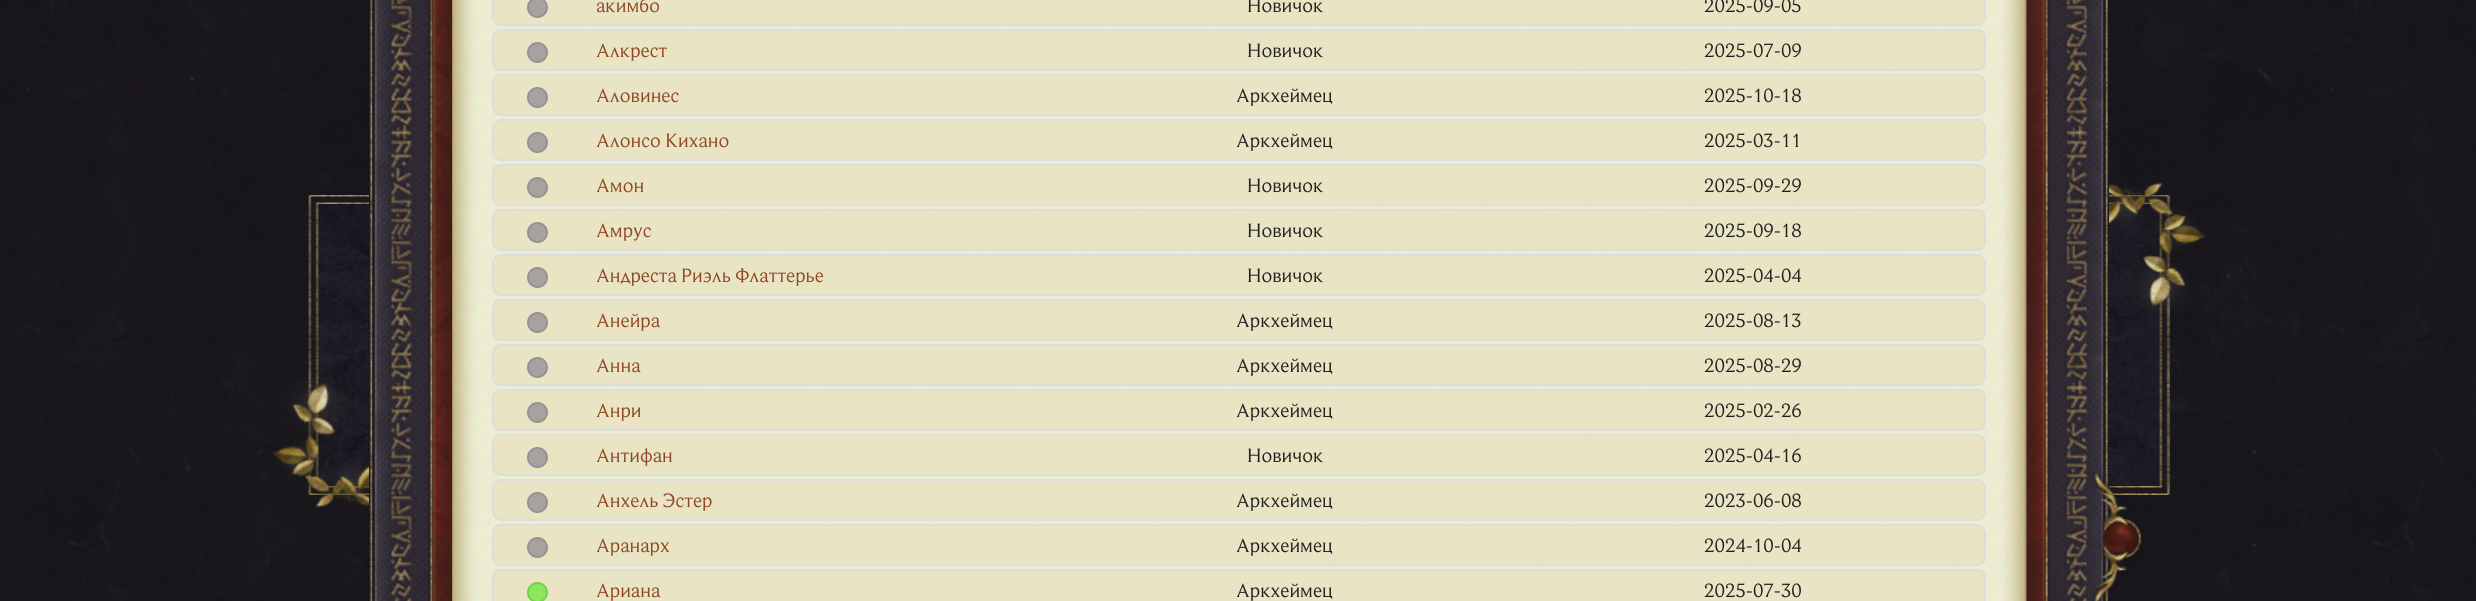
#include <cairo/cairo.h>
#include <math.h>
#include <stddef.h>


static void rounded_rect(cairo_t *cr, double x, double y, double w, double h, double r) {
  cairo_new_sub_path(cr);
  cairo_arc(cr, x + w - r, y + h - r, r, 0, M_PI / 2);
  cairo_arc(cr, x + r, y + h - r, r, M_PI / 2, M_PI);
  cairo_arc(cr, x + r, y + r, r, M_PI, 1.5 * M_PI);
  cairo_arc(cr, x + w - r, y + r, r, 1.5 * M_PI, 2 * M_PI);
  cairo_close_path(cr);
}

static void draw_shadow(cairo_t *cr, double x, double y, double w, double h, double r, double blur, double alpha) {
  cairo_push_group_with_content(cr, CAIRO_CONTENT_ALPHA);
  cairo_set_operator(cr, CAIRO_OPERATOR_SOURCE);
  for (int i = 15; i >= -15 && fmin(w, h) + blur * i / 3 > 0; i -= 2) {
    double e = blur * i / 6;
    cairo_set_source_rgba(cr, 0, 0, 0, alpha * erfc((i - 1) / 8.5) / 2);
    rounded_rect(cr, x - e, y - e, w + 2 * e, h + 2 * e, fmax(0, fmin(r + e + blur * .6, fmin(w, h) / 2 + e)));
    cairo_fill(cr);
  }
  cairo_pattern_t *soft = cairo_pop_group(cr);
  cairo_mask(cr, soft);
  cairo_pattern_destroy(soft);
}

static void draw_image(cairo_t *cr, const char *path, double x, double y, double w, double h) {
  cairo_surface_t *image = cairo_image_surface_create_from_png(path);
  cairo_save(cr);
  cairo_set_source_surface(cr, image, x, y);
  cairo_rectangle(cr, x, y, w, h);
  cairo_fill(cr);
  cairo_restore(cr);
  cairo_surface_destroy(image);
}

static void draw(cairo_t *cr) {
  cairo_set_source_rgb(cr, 1, 1, 1);
  cairo_paint(cr);
  draw_image(cr, "images/1.png", 0, 0, 2476, 601);
  draw_image(cr, "images/5.png", 309, 195, 1861, 300);
  draw_image(cr, "images/6.png", 308, 195, 1862, 300);
  draw_image(cr, "images/2.png", 369, 0, 1740, 601);
  cairo_set_source_rgb(cr, 25 / 255.0, 21 / 255.0, 27 / 255.0);
  draw_shadow(cr, 429, -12, 1620, 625, 0, 4, 0.4);
  draw_image(cr, "images/3.png", 452, 0, 1575, 601);
  draw_image(cr, "images/4.png", 429, 0, 1620, 601);
  cairo_set_source_rgb(cr, 232 / 255.0, 228 / 255.0, 196 / 255.0);
  rounded_rect(cr, 493, -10, 1492, 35, 8);
  cairo_fill_preserve(cr);
  cairo_set_source_rgb(cr, 221 / 255.0, 221 / 255.0, 221 / 255.0);
  cairo_stroke(cr);
  cairo_set_source_rgb(cr, 167 / 255.0, 162 / 255.0, 162 / 255.0);
  cairo_arc(cr, 537.5, 7.5, 9.5, 0, 2 * M_PI);
  cairo_fill_preserve(cr);
  cairo_set_source_rgb(cr, 150 / 255.0, 146 / 255.0, 146 / 255.0);
  cairo_stroke(cr);
  cairo_set_source_rgb(cr, 232 / 255.0, 228 / 255.0, 196 / 255.0);
  rounded_rect(cr, 493, 30, 1492, 40, 8);
  cairo_fill_preserve(cr);
  cairo_set_source_rgb(cr, 221 / 255.0, 221 / 255.0, 221 / 255.0);
  cairo_stroke(cr);
  cairo_set_source_rgb(cr, 167 / 255.0, 162 / 255.0, 162 / 255.0);
  cairo_arc(cr, 537.5, 52.5, 9.5, 0, 2 * M_PI);
  cairo_fill_preserve(cr);
  cairo_set_source_rgb(cr, 150 / 255.0, 146 / 255.0, 146 / 255.0);
  cairo_stroke(cr);
  cairo_set_source_rgb(cr, 232 / 255.0, 228 / 255.0, 196 / 255.0);
  rounded_rect(cr, 493, 75, 1492, 40, 8);
  cairo_fill_preserve(cr);
  cairo_set_source_rgb(cr, 221 / 255.0, 221 / 255.0, 221 / 255.0);
  cairo_stroke(cr);
  cairo_set_source_rgb(cr, 167 / 255.0, 162 / 255.0, 162 / 255.0);
  cairo_arc(cr, 537.5, 97.5, 9.5, 0, 2 * M_PI);
  cairo_fill_preserve(cr);
  cairo_set_source_rgb(cr, 150 / 255.0, 146 / 255.0, 146 / 255.0);
  cairo_stroke(cr);
  cairo_set_source_rgb(cr, 232 / 255.0, 228 / 255.0, 196 / 255.0);
  rounded_rect(cr, 493, 120, 1492, 40, 8);
  cairo_fill_preserve(cr);
  cairo_set_source_rgb(cr, 221 / 255.0, 221 / 255.0, 221 / 255.0);
  cairo_stroke(cr);
  cairo_set_source_rgb(cr, 167 / 255.0, 162 / 255.0, 162 / 255.0);
  cairo_arc(cr, 537.5, 142.5, 9.5, 0, 2 * M_PI);
  cairo_fill_preserve(cr);
  cairo_set_source_rgb(cr, 150 / 255.0, 146 / 255.0, 146 / 255.0);
  cairo_stroke(cr);
  cairo_set_source_rgb(cr, 232 / 255.0, 228 / 255.0, 196 / 255.0);
  rounded_rect(cr, 493, 165, 1492, 40, 8);
  cairo_fill_preserve(cr);
  cairo_set_source_rgb(cr, 221 / 255.0, 221 / 255.0, 221 / 255.0);
  cairo_stroke(cr);
  cairo_set_source_rgb(cr, 167 / 255.0, 162 / 255.0, 162 / 255.0);
  cairo_arc(cr, 537.5, 187.5, 9.5, 0, 2 * M_PI);
  cairo_fill_preserve(cr);
  cairo_set_source_rgb(cr, 150 / 255.0, 146 / 255.0, 146 / 255.0);
  cairo_stroke(cr);
  cairo_set_source_rgb(cr, 232 / 255.0, 228 / 255.0, 196 / 255.0);
  rounded_rect(cr, 493, 210, 1492, 40, 8);
  cairo_fill_preserve(cr);
  cairo_set_source_rgb(cr, 221 / 255.0, 221 / 255.0, 221 / 255.0);
  cairo_stroke(cr);
  cairo_set_source_rgb(cr, 167 / 255.0, 162 / 255.0, 162 / 255.0);
  cairo_arc(cr, 537.5, 232.5, 9.5, 0, 2 * M_PI);
  cairo_fill_preserve(cr);
  cairo_set_source_rgb(cr, 150 / 255.0, 146 / 255.0, 146 / 255.0);
  cairo_stroke(cr);
  cairo_set_source_rgb(cr, 232 / 255.0, 228 / 255.0, 196 / 255.0);
  rounded_rect(cr, 493, 255, 1492, 40, 8);
  cairo_fill_preserve(cr);
  cairo_set_source_rgb(cr, 221 / 255.0, 221 / 255.0, 221 / 255.0);
  cairo_stroke(cr);
  cairo_set_source_rgb(cr, 167 / 255.0, 162 / 255.0, 162 / 255.0);
  cairo_arc(cr, 537.5, 277.5, 9.5, 0, 2 * M_PI);
  cairo_fill_preserve(cr);
  cairo_set_source_rgb(cr, 150 / 255.0, 146 / 255.0, 146 / 255.0);
  cairo_stroke(cr);
  cairo_set_source_rgb(cr, 232 / 255.0, 228 / 255.0, 196 / 255.0);
  rounded_rect(cr, 493, 300, 1492, 40, 8);
  cairo_fill_preserve(cr);
  cairo_set_source_rgb(cr, 221 / 255.0, 221 / 255.0, 221 / 255.0);
  cairo_stroke(cr);
  cairo_set_source_rgb(cr, 167 / 255.0, 162 / 255.0, 162 / 255.0);
  cairo_arc(cr, 537.5, 322.5, 9.5, 0, 2 * M_PI);
  cairo_fill_preserve(cr);
  cairo_set_source_rgb(cr, 150 / 255.0, 146 / 255.0, 146 / 255.0);
  cairo_stroke(cr);
  cairo_set_source_rgb(cr, 232 / 255.0, 228 / 255.0, 196 / 255.0);
  rounded_rect(cr, 493, 345, 1492, 40, 8);
  cairo_fill_preserve(cr);
  cairo_set_source_rgb(cr, 221 / 255.0, 221 / 255.0, 221 / 255.0);
  cairo_stroke(cr);
  cairo_set_source_rgb(cr, 167 / 255.0, 162 / 255.0, 162 / 255.0);
  cairo_arc(cr, 537.5, 367.5, 9.5, 0, 2 * M_PI);
  cairo_fill_preserve(cr);
  cairo_set_source_rgb(cr, 150 / 255.0, 146 / 255.0, 146 / 255.0);
  cairo_stroke(cr);
  cairo_set_source_rgb(cr, 232 / 255.0, 228 / 255.0, 196 / 255.0);
  rounded_rect(cr, 493, 390, 1492, 40, 8);
  cairo_fill_preserve(cr);
  cairo_set_source_rgb(cr, 221 / 255.0, 221 / 255.0, 221 / 255.0);
  cairo_stroke(cr);
  cairo_set_source_rgb(cr, 167 / 255.0, 162 / 255.0, 162 / 255.0);
  cairo_arc(cr, 537.5, 412.5, 9.5, 0, 2 * M_PI);
  cairo_fill_preserve(cr);
  cairo_set_source_rgb(cr, 150 / 255.0, 146 / 255.0, 146 / 255.0);
  cairo_stroke(cr);
  cairo_set_source_rgb(cr, 232 / 255.0, 228 / 255.0, 196 / 255.0);
  rounded_rect(cr, 493, 435, 1492, 40, 8);
  cairo_fill_preserve(cr);
  cairo_set_source_rgb(cr, 221 / 255.0, 221 / 255.0, 221 / 255.0);
  cairo_stroke(cr);
  cairo_set_source_rgb(cr, 167 / 255.0, 162 / 255.0, 162 / 255.0);
  cairo_arc(cr, 537.5, 457.5, 9.5, 0, 2 * M_PI);
  cairo_fill_preserve(cr);
  cairo_set_source_rgb(cr, 150 / 255.0, 146 / 255.0, 146 / 255.0);
  cairo_stroke(cr);
  cairo_set_source_rgb(cr, 232 / 255.0, 228 / 255.0, 196 / 255.0);
  rounded_rect(cr, 493, 480, 1492, 40, 8);
  cairo_fill_preserve(cr);
  cairo_set_source_rgb(cr, 221 / 255.0, 221 / 255.0, 221 / 255.0);
  cairo_stroke(cr);
  cairo_set_source_rgb(cr, 167 / 255.0, 162 / 255.0, 162 / 255.0);
  cairo_arc(cr, 537.5, 502.5, 9.5, 0, 2 * M_PI);
  cairo_fill_preserve(cr);
  cairo_set_source_rgb(cr, 150 / 255.0, 146 / 255.0, 146 / 255.0);
  cairo_stroke(cr);
  cairo_set_source_rgb(cr, 232 / 255.0, 228 / 255.0, 196 / 255.0);
  rounded_rect(cr, 493, 525, 1492, 40, 8);
  cairo_fill_preserve(cr);
  cairo_set_source_rgb(cr, 221 / 255.0, 221 / 255.0, 221 / 255.0);
  cairo_stroke(cr);
  cairo_set_source_rgb(cr, 167 / 255.0, 162 / 255.0, 162 / 255.0);
  cairo_arc(cr, 537.5, 547.5, 9.5, 0, 2 * M_PI);
  cairo_fill_preserve(cr);
  cairo_set_source_rgb(cr, 150 / 255.0, 146 / 255.0, 146 / 255.0);
  cairo_stroke(cr);
  cairo_set_source_rgb(cr, 232 / 255.0, 228 / 255.0, 196 / 255.0);
  rounded_rect(cr, 493, 570, 1492, 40, 8);
  cairo_fill_preserve(cr);
  cairo_set_source_rgb(cr, 221 / 255.0, 221 / 255.0, 221 / 255.0);
  cairo_stroke(cr);
  cairo_set_source_rgb(cr, 137 / 255.0, 231 / 255.0, 90 / 255.0);
  cairo_arc(cr, 537.5, 592.5, 9.5, 0, 2 * M_PI);
  cairo_fill_preserve(cr);
  cairo_set_source_rgb(cr, 116 / 255.0, 210 / 255.0, 70 / 255.0);
  cairo_stroke(cr);
  draw_image(cr, "images/7.png", 2109, 182, 97, 131);
  draw_image(cr, "images/8.png", 272, 377, 97, 131);
  draw_image(cr, "images/9.png", 2092, 472, 50, 129);
  cairo_select_font_face(cr, "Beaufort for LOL", CAIRO_FONT_SLANT_NORMAL, CAIRO_FONT_WEIGHT_NORMAL);
  cairo_set_font_size(cr, 20);
  cairo_set_source_rgb(cr, 142 / 255.0, 70 / 255.0, 34 / 255.0);
  cairo_move_to(cr, 596, 12);
  cairo_show_text(cr, "акимбо");
  cairo_set_source_rgb(cr, 32 / 255.0, 32 / 255.0, 32 / 255.0);
  cairo_move_to(cr, 1247, 12);
  cairo_show_text(cr, "Новичок");
  cairo_move_to(cr, 1704, 12);
  cairo_show_text(cr, "2025-09-05");
  cairo_set_source_rgb(cr, 142 / 255.0, 70 / 255.0, 34 / 255.0);
  cairo_move_to(cr, 596, 57);
  cairo_show_text(cr, "Алкрест");
  cairo_set_source_rgb(cr, 32 / 255.0, 32 / 255.0, 32 / 255.0);
  cairo_move_to(cr, 1247, 57);
  cairo_show_text(cr, "Новичок");
  cairo_move_to(cr, 1704, 57);
  cairo_show_text(cr, "2025-07-09");
  cairo_set_source_rgb(cr, 142 / 255.0, 70 / 255.0, 34 / 255.0);
  cairo_move_to(cr, 596, 102);
  cairo_show_text(cr, "Аловинес");
  cairo_set_source_rgb(cr, 32 / 255.0, 32 / 255.0, 32 / 255.0);
  cairo_move_to(cr, 1236, 102);
  cairo_show_text(cr, "Аркхеймец");
  cairo_move_to(cr, 1704, 102);
  cairo_show_text(cr, "2025-10-18");
  cairo_set_source_rgb(cr, 142 / 255.0, 70 / 255.0, 34 / 255.0);
  cairo_move_to(cr, 596, 147);
  cairo_show_text(cr, "Алонсо Кихано");
  cairo_set_source_rgb(cr, 32 / 255.0, 32 / 255.0, 32 / 255.0);
  cairo_move_to(cr, 1236, 147);
  cairo_show_text(cr, "Аркхеймец");
  cairo_move_to(cr, 1704, 147);
  cairo_show_text(cr, "2025-03-11");
  cairo_set_source_rgb(cr, 142 / 255.0, 70 / 255.0, 34 / 255.0);
  cairo_move_to(cr, 596, 192);
  cairo_show_text(cr, "Амон");
  cairo_set_source_rgb(cr, 32 / 255.0, 32 / 255.0, 32 / 255.0);
  cairo_move_to(cr, 1247, 192);
  cairo_show_text(cr, "Новичок");
  cairo_move_to(cr, 1704, 192);
  cairo_show_text(cr, "2025-09-29");
  cairo_set_source_rgb(cr, 142 / 255.0, 70 / 255.0, 34 / 255.0);
  cairo_move_to(cr, 596, 237);
  cairo_show_text(cr, "Амрус");
  cairo_set_source_rgb(cr, 32 / 255.0, 32 / 255.0, 32 / 255.0);
  cairo_move_to(cr, 1247, 237);
  cairo_show_text(cr, "Новичок");
  cairo_move_to(cr, 1704, 237);
  cairo_show_text(cr, "2025-09-18");
  cairo_set_source_rgb(cr, 142 / 255.0, 70 / 255.0, 34 / 255.0);
  cairo_move_to(cr, 596, 282);
  cairo_show_text(cr, "Андреста Риэль Флаттерье");
  cairo_set_source_rgb(cr, 32 / 255.0, 32 / 255.0, 32 / 255.0);
  cairo_move_to(cr, 1247, 282);
  cairo_show_text(cr, "Новичок");
  cairo_move_to(cr, 1704, 282);
  cairo_show_text(cr, "2025-04-04");
  cairo_set_source_rgb(cr, 142 / 255.0, 70 / 255.0, 34 / 255.0);
  cairo_move_to(cr, 596, 327);
  cairo_show_text(cr, "Анейра");
  cairo_set_source_rgb(cr, 32 / 255.0, 32 / 255.0, 32 / 255.0);
  cairo_move_to(cr, 1236, 327);
  cairo_show_text(cr, "Аркхеймец");
  cairo_move_to(cr, 1704, 327);
  cairo_show_text(cr, "2025-08-13");
  cairo_set_source_rgb(cr, 142 / 255.0, 70 / 255.0, 34 / 255.0);
  cairo_move_to(cr, 596, 372);
  cairo_show_text(cr, "Анна");
  cairo_set_source_rgb(cr, 32 / 255.0, 32 / 255.0, 32 / 255.0);
  cairo_move_to(cr, 1236, 372);
  cairo_show_text(cr, "Аркхеймец");
  cairo_move_to(cr, 1704, 372);
  cairo_show_text(cr, "2025-08-29");
  cairo_set_source_rgb(cr, 142 / 255.0, 70 / 255.0, 34 / 255.0);
  cairo_move_to(cr, 596, 417);
  cairo_show_text(cr, "Анри");
  cairo_set_source_rgb(cr, 32 / 255.0, 32 / 255.0, 32 / 255.0);
  cairo_move_to(cr, 1236, 417);
  cairo_show_text(cr, "Аркхеймец");
  cairo_move_to(cr, 1704, 417);
  cairo_show_text(cr, "2025-02-26");
  cairo_set_source_rgb(cr, 142 / 255.0, 70 / 255.0, 34 / 255.0);
  cairo_move_to(cr, 596, 462);
  cairo_show_text(cr, "Антифан");
  cairo_set_source_rgb(cr, 32 / 255.0, 32 / 255.0, 32 / 255.0);
  cairo_move_to(cr, 1247, 462);
  cairo_show_text(cr, "Новичок");
  cairo_move_to(cr, 1704, 462);
  cairo_show_text(cr, "2025-04-16");
  cairo_set_source_rgb(cr, 142 / 255.0, 70 / 255.0, 34 / 255.0);
  cairo_move_to(cr, 596, 507);
  cairo_show_text(cr, "Анхель Эстер");
  cairo_set_source_rgb(cr, 32 / 255.0, 32 / 255.0, 32 / 255.0);
  cairo_move_to(cr, 1236, 507);
  cairo_show_text(cr, "Аркхеймец");
  cairo_move_to(cr, 1704, 507);
  cairo_show_text(cr, "2023-06-08");
  cairo_set_source_rgb(cr, 142 / 255.0, 70 / 255.0, 34 / 255.0);
  cairo_move_to(cr, 596, 552);
  cairo_show_text(cr, "Аранарх");
  cairo_set_source_rgb(cr, 32 / 255.0, 32 / 255.0, 32 / 255.0);
  cairo_move_to(cr, 1236, 552);
  cairo_show_text(cr, "Аркхеймец");
  cairo_move_to(cr, 1704, 552);
  cairo_show_text(cr, "2024-10-04");
  cairo_set_source_rgb(cr, 142 / 255.0, 70 / 255.0, 34 / 255.0);
  cairo_move_to(cr, 596, 597);
  cairo_show_text(cr, "Ариана");
  cairo_set_source_rgb(cr, 32 / 255.0, 32 / 255.0, 32 / 255.0);
  cairo_move_to(cr, 1236, 597);
  cairo_show_text(cr, "Аркхеймец");
  cairo_move_to(cr, 1704, 597);
  cairo_show_text(cr, "2025-07-30");
}

int main(void) {
  cairo_surface_t *surface = cairo_image_surface_create(CAIRO_FORMAT_RGB24, 2476, 601);
  cairo_t *cr = cairo_create(surface);
  cairo_font_options_t *options = cairo_font_options_create();
  cairo_font_options_set_hint_metrics(options, CAIRO_HINT_METRICS_OFF);
  cairo_font_options_set_hint_style(options, CAIRO_HINT_STYLE_NONE);
  cairo_set_font_options(cr, options);
  cairo_set_miter_limit(cr, 4);
  draw(cr);
  cairo_surface_write_to_png(surface, "out.png");
  cairo_font_options_destroy(options);
  cairo_destroy(cr);
  cairo_surface_destroy(surface);
  return 0;
}
